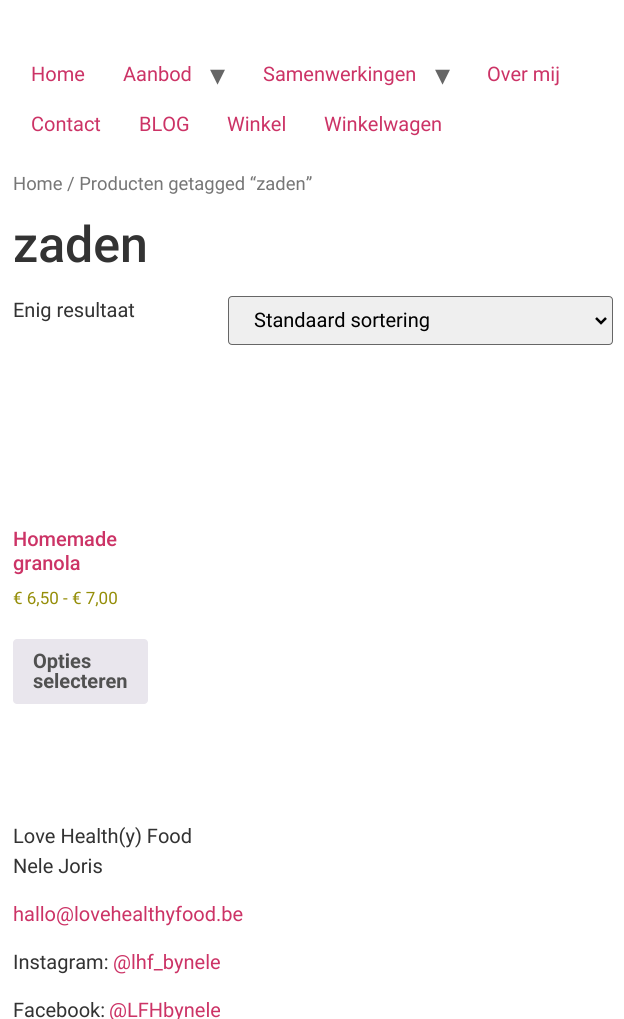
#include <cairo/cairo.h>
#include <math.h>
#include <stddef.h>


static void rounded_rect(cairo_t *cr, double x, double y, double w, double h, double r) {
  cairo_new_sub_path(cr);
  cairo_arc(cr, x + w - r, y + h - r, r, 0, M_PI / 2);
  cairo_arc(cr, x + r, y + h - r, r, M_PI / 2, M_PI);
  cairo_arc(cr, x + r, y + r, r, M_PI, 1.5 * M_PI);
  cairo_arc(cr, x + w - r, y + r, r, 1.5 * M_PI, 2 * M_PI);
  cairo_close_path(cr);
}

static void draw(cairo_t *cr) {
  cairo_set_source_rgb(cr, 1, 1, 1);
  cairo_paint(cr);
  cairo_set_source_rgb(cr, 239 / 255.0, 239 / 255.0, 239 / 255.0);
  rounded_rect(cr, 228.5, 296.5, 384, 48, 3.5);
  cairo_fill_preserve(cr);
  cairo_set_source_rgb(cr, 102 / 255.0, 102 / 255.0, 102 / 255.0);
  cairo_set_line_width(cr, 1);
  cairo_stroke(cr);
  cairo_new_path(cr);
  cairo_move_to(cr, 596, 318);
  cairo_line_to(cr, 601, 323);
  cairo_line_to(cr, 606, 318);
  cairo_set_source_rgb(cr, 0, 0, 0);
  cairo_set_line_width(cr, 2.5);
  cairo_stroke(cr);
  cairo_set_source_rgb(cr, 233 / 255.0, 230 / 255.0, 237 / 255.0);
  rounded_rect(cr, 13, 639, 135, 65, 4);
  cairo_fill(cr);
  cairo_select_font_face(cr, "Roboto", CAIRO_FONT_SLANT_NORMAL, CAIRO_FONT_WEIGHT_NORMAL);
  cairo_set_font_size(cr, 20);
  cairo_set_source_rgb(cr, 204 / 255.0, 51 / 255.0, 102 / 255.0);
  cairo_move_to(cr, 31, 81);
  cairo_show_text(cr, "Home");
  cairo_move_to(cr, 123, 81);
  cairo_show_text(cr, "Aanbod");
  cairo_select_font_face(cr, "DejaVu Sans", CAIRO_FONT_SLANT_NORMAL, CAIRO_FONT_WEIGHT_NORMAL);
  cairo_set_font_size(cr, 30);
  cairo_set_source_rgb(cr, 102 / 255.0, 102 / 255.0, 102 / 255.0);
  cairo_move_to(cr, 210, 85);
  cairo_show_text(cr, "▾");
  cairo_select_font_face(cr, "Roboto", CAIRO_FONT_SLANT_NORMAL, CAIRO_FONT_WEIGHT_NORMAL);
  cairo_set_font_size(cr, 20);
  cairo_set_source_rgb(cr, 204 / 255.0, 51 / 255.0, 102 / 255.0);
  cairo_move_to(cr, 263, 81);
  cairo_show_text(cr, "Samenwerkingen");
  cairo_select_font_face(cr, "DejaVu Sans", CAIRO_FONT_SLANT_NORMAL, CAIRO_FONT_WEIGHT_NORMAL);
  cairo_set_font_size(cr, 30);
  cairo_set_source_rgb(cr, 102 / 255.0, 102 / 255.0, 102 / 255.0);
  cairo_move_to(cr, 435, 85);
  cairo_show_text(cr, "▾");
  cairo_select_font_face(cr, "Roboto", CAIRO_FONT_SLANT_NORMAL, CAIRO_FONT_WEIGHT_NORMAL);
  cairo_set_font_size(cr, 20);
  cairo_set_source_rgb(cr, 204 / 255.0, 51 / 255.0, 102 / 255.0);
  cairo_move_to(cr, 487, 81);
  cairo_show_text(cr, "Over mij");
  cairo_move_to(cr, 31, 131);
  cairo_show_text(cr, "Contact");
  cairo_move_to(cr, 139, 131);
  cairo_show_text(cr, "BLOG");
  cairo_move_to(cr, 227, 131);
  cairo_show_text(cr, "Winkel");
  cairo_move_to(cr, 324, 131);
  cairo_show_text(cr, "Winkelwagen");
  cairo_set_font_size(cr, 18.4);
  cairo_set_source_rgb(cr, 118 / 255.0, 118 / 255.0, 118 / 255.0);
  cairo_move_to(cr, 13, 190);
  cairo_show_text(cr, "Home / Producten getagged “zaden”");
  cairo_select_font_face(cr, "Roboto Medium", CAIRO_FONT_SLANT_NORMAL, CAIRO_FONT_WEIGHT_NORMAL);
  cairo_set_font_size(cr, 50);
  cairo_set_source_rgb(cr, 51 / 255.0, 51 / 255.0, 51 / 255.0);
  cairo_move_to(cr, 13, 262);
  cairo_show_text(cr, "zaden");
  cairo_select_font_face(cr, "Roboto", CAIRO_FONT_SLANT_NORMAL, CAIRO_FONT_WEIGHT_NORMAL);
  cairo_set_font_size(cr, 20);
  cairo_move_to(cr, 13, 317);
  cairo_show_text(cr, "Enig resultaat");
  cairo_set_source_rgb(cr, 0, 0, 0);
  cairo_move_to(cr, 254, 327);
  cairo_show_text(cr, "Standaard sortering");
  cairo_select_font_face(cr, "Roboto Medium", CAIRO_FONT_SLANT_NORMAL, CAIRO_FONT_WEIGHT_NORMAL);
  cairo_set_source_rgb(cr, 204 / 255.0, 51 / 255.0, 102 / 255.0);
  cairo_move_to(cr, 13, 546);
  cairo_show_text(cr, "Homemade");
  cairo_move_to(cr, 13, 570);
  cairo_show_text(cr, "granola");
  cairo_select_font_face(cr, "Roboto", CAIRO_FONT_SLANT_NORMAL, CAIRO_FONT_WEIGHT_NORMAL);
  cairo_set_font_size(cr, 17);
  cairo_set_source_rgb(cr, 149 / 255.0, 142 / 255.0, 9 / 255.0);
  cairo_move_to(cr, 13, 604);
  cairo_show_text(cr, "€ 6,50 - € 7,00");
  cairo_select_font_face(cr, "Roboto", CAIRO_FONT_SLANT_NORMAL, CAIRO_FONT_WEIGHT_BOLD);
  cairo_set_font_size(cr, 20);
  cairo_set_source_rgb(cr, 81 / 255.0, 81 / 255.0, 81 / 255.0);
  cairo_move_to(cr, 33, 668);
  cairo_show_text(cr, "Opties");
  cairo_move_to(cr, 33, 688);
  cairo_show_text(cr, "selecteren");
  cairo_select_font_face(cr, "Roboto", CAIRO_FONT_SLANT_NORMAL, CAIRO_FONT_WEIGHT_NORMAL);
  cairo_set_source_rgb(cr, 51 / 255.0, 51 / 255.0, 51 / 255.0);
  cairo_move_to(cr, 13, 843);
  cairo_show_text(cr, "Love Health(y) Food");
  cairo_move_to(cr, 13, 873);
  cairo_show_text(cr, "Nele Joris");
  cairo_set_source_rgb(cr, 204 / 255.0, 51 / 255.0, 102 / 255.0);
  cairo_move_to(cr, 13, 921);
  cairo_show_text(cr, "hallo@lovehealthyfood.be");
  cairo_set_source_rgb(cr, 51 / 255.0, 51 / 255.0, 51 / 255.0);
  cairo_move_to(cr, 13, 969);
  cairo_show_text(cr, "Instagram:");
  cairo_set_source_rgb(cr, 204 / 255.0, 51 / 255.0, 102 / 255.0);
  cairo_move_to(cr, 113, 969);
  cairo_show_text(cr, "@lhf_bynele");
  cairo_set_source_rgb(cr, 51 / 255.0, 51 / 255.0, 51 / 255.0);
  cairo_move_to(cr, 13, 1017);
  cairo_show_text(cr, "Facebook:");
  cairo_set_source_rgb(cr, 204 / 255.0, 51 / 255.0, 102 / 255.0);
  cairo_move_to(cr, 109, 1017);
  cairo_show_text(cr, "@LFHbynele");
}

int main(void) {
  cairo_surface_t *surface = cairo_image_surface_create(CAIRO_FORMAT_RGB24, 624, 1019);
  cairo_t *cr = cairo_create(surface);
  cairo_font_options_t *options = cairo_font_options_create();
  cairo_font_options_set_hint_metrics(options, CAIRO_HINT_METRICS_OFF);
  cairo_font_options_set_hint_style(options, CAIRO_HINT_STYLE_NONE);
  cairo_set_font_options(cr, options);
  cairo_set_miter_limit(cr, 4);
  draw(cr);
  cairo_surface_write_to_png(surface, "out.png");
  cairo_font_options_destroy(options);
  cairo_destroy(cr);
  cairo_surface_destroy(surface);
  return 0;
}
